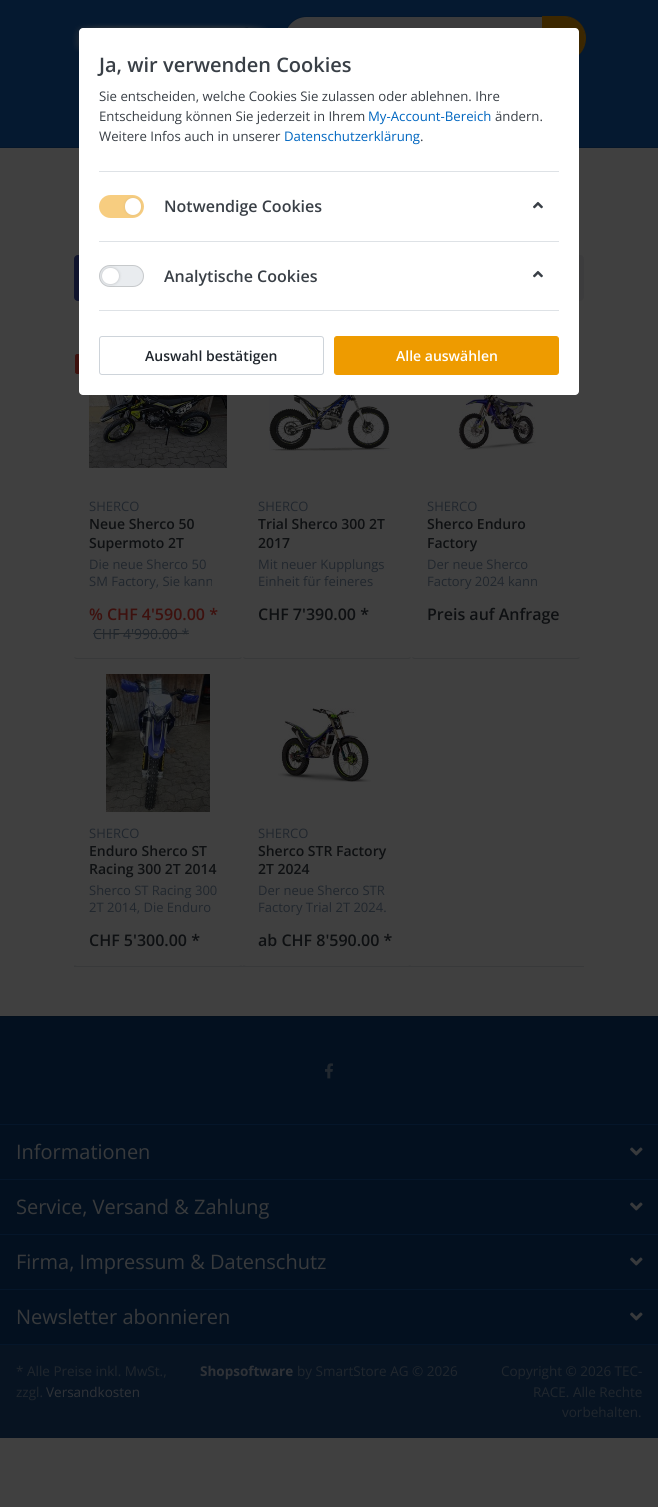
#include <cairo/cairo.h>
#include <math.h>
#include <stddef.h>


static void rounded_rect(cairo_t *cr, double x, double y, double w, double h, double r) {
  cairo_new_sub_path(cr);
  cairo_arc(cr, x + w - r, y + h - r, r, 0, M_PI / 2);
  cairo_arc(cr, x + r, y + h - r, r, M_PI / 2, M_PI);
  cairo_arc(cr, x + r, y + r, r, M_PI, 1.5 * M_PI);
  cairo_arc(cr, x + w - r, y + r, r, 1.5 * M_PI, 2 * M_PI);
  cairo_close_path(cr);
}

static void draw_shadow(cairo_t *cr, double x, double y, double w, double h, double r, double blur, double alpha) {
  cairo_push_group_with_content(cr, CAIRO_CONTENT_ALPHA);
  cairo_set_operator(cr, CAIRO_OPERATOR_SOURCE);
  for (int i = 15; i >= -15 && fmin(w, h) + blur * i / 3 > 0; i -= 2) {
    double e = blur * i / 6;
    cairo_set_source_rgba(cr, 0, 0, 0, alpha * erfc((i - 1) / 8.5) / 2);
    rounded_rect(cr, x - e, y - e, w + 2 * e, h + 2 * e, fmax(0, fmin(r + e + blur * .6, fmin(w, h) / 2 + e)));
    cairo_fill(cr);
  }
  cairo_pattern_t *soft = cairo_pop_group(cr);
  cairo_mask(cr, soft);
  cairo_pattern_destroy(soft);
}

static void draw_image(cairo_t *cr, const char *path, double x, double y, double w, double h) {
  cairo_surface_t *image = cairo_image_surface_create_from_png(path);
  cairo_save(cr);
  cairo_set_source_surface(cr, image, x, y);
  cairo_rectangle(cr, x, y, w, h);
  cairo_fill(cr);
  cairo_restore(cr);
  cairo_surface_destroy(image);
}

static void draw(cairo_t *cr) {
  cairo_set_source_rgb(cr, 64 / 255.0, 64 / 255.0, 64 / 255.0);
  cairo_paint(cr);
  cairo_set_source_rgb(cr, 5 / 255.0, 25 / 255.0, 48 / 255.0);
  cairo_rectangle(cr, 0, 0, 658, 147);
  cairo_fill(cr);
  cairo_set_source_rgb(cr, 5 / 255.0, 22 / 255.0, 42 / 255.0);
  cairo_rectangle(cr, 0, 147, 658, 1);
  cairo_fill(cr);
  draw_image(cr, "images/2.png", 72, 23, 196, 29);
  cairo_set_source_rgb(cr, 60 / 255.0, 60 / 255.0, 61 / 255.0);
  rounded_rect(cr, 285, 17, 300, 43, 21.5);
  cairo_fill(cr);
  rounded_rect(cr, 284.5, 16.5, 301, 44, 22);
  cairo_set_source_rgba(cr, 0, 0, 0, 0.1);
  cairo_set_line_width(cr, 1);
  cairo_stroke(cr);
  cairo_set_source_rgb(cr, 60 / 255.0, 39 / 255.0, 0);
  cairo_new_path(cr);
  cairo_move_to(cr, 542, 17);
  cairo_line_to(cr, 563.5, 17);
  cairo_curve_to(cr, 575.5, 17, 585, 26.5, 585, 38.5);
  cairo_curve_to(cr, 585, 50.5, 575.5, 60, 563.5, 60);
  cairo_line_to(cr, 542, 60);
  cairo_close_path(cr);
  cairo_fill(cr);
  cairo_set_fill_rule(cr, CAIRO_FILL_RULE_EVEN_ODD);
  cairo_new_path(cr);
  cairo_move_to(cr, 542, 16);
  cairo_line_to(cr, 564, 16);
  cairo_curve_to(cr, 576, 16, 586, 26, 586, 38);
  cairo_curve_to(cr, 586, 51, 576, 61, 564, 61);
  cairo_line_to(cr, 542, 61);
  cairo_close_path(cr);
  cairo_move_to(cr, 542, 17);
  cairo_line_to(cr, 564, 17);
  cairo_curve_to(cr, 575, 17, 585, 27, 585, 38);
  cairo_curve_to(cr, 585, 50, 575, 60, 564, 60);
  cairo_line_to(cr, 542, 60);
  cairo_close_path(cr);
  cairo_fill(cr);
  cairo_set_source_rgb(cr, 16 / 255.0, 20 / 255.0, 45 / 255.0);
  rounded_rect(cr, 74, 255, 211, 46, 4);
  cairo_fill(cr);
  cairo_set_source_rgb(cr, 60 / 255.0, 60 / 255.0, 61 / 255.0);
  rounded_rect(cr, 534, 255, 50, 46, 4);
  cairo_fill(cr);
  cairo_set_source_rgb(cr, 61 / 255.0, 17 / 255.0, 14 / 255.0);
  rounded_rect(cr, 74.5, 353.5, 50, 21, 2.5);
  cairo_fill_preserve(cr);
  cairo_set_source_rgb(cr, 64 / 255.0, 64 / 255.0, 64 / 255.0);
  cairo_stroke(cr);
  cairo_set_source_rgb(cr, 1, 1, 1);
  rounded_rect(cr, 79, 28, 500, 367, 4);
  cairo_fill(cr);
  cairo_set_source_rgb(cr, 222 / 255.0, 226 / 255.0, 230 / 255.0);
  cairo_rectangle(cr, 99, 171, 460, 1);
  cairo_fill(cr);
  cairo_rectangle(cr, 99, 241, 460, 1);
  cairo_fill(cr);
  cairo_set_source_rgb(cr, 247 / 255.0, 205 / 255.0, 128 / 255.0);
  rounded_rect(cr, 99, 195, 45, 23, 11.5);
  cairo_fill(cr);
  cairo_set_source_rgb(cr, 128 / 255.0, 128 / 255.0, 128 / 255.0);
  draw_shadow(cr, 125, 198, 16, 17, 8, 1.5, 0.2);
  cairo_set_source_rgb(cr, 1, 1, 1);
  rounded_rect(cr, 125, 198, 16, 17, 8);
  cairo_fill(cr);
  draw_image(cr, "images/1.png", 533, 201, 10, 8);
  cairo_set_source_rgb(cr, 222 / 255.0, 226 / 255.0, 230 / 255.0);
  cairo_rectangle(cr, 99, 310, 460, 1);
  cairo_fill(cr);
  cairo_set_source_rgb(cr, 233 / 255.0, 236 / 255.0, 239 / 255.0);
  rounded_rect(cr, 99, 265, 45, 22, 11);
  cairo_fill(cr);
  rounded_rect(cr, 99.5, 265.5, 44, 21, 10.5);
  cairo_set_source_rgba(cr, 0, 0, 0, 0.15);
  cairo_stroke(cr);
  cairo_set_source_rgb(cr, 0, 0, 0);
  draw_shadow(cr, 102, 268, 17, 16, 8, 1.5, 0.2);
  cairo_set_source_rgb(cr, 1, 1, 1);
  rounded_rect(cr, 102, 268, 17, 16, 8);
  cairo_fill(cr);
  draw_image(cr, "images/1.png", 533, 270, 10, 8);
  rounded_rect(cr, 99.5, 336.5, 224, 38, 2.5);
  cairo_set_source_rgb(cr, 206 / 255.0, 212 / 255.0, 218 / 255.0);
  cairo_stroke(cr);
  cairo_set_source_rgb(cr, 238 / 255.0, 155 / 255.0, 0);
  rounded_rect(cr, 334.5, 336.5, 224, 38, 2.5);
  cairo_fill_preserve(cr);
  cairo_stroke(cr);
  cairo_new_path(cr);
  cairo_move_to(cr, 241.5, 657.5);
  cairo_line_to(cr, 240, 658.5);
  cairo_line_to(cr, 76, 658.5);
  cairo_line_to(cr, 74.5, 657.5);
  cairo_set_source_rgb(cr, 56 / 255.0, 57 / 255.0, 58 / 255.0);
  cairo_stroke(cr);
  draw_image(cr, "images/3.png", 89, 395, 138, 73);
  cairo_new_path(cr);
  cairo_move_to(cr, 410.5, 657.5);
  cairo_line_to(cr, 409, 658.5);
  cairo_line_to(cr, 245, 658.5);
  cairo_line_to(cr, 243.5, 657.5);
  cairo_stroke(cr);
  draw_image(cr, "images/4.png", 269, 395, 121, 56);
  cairo_new_path(cr);
  cairo_move_to(cr, 579.5, 657.5);
  cairo_line_to(cr, 578, 658.5);
  cairo_line_to(cr, 414, 658.5);
  cairo_line_to(cr, 412.5, 657.5);
  cairo_stroke(cr);
  draw_image(cr, "images/5.png", 458, 395, 78, 55);
  cairo_new_path(cr);
  cairo_move_to(cr, 241.5, 965.5);
  cairo_line_to(cr, 240, 966.5);
  cairo_line_to(cr, 76, 966.5);
  cairo_line_to(cr, 74.5, 965.5);
  cairo_stroke(cr);
  draw_image(cr, "images/6.png", 106, 674, 104, 138);
  cairo_new_path(cr);
  cairo_move_to(cr, 410.5, 965.5);
  cairo_line_to(cr, 409, 966.5);
  cairo_line_to(cr, 245, 966.5);
  cairo_line_to(cr, 243.5, 965.5);
  cairo_stroke(cr);
  draw_image(cr, "images/7.png", 278, 708, 93, 74);
  cairo_rectangle(cr, 74, 966, 510, 1);
  cairo_fill(cr);
  cairo_set_source_rgb(cr, 3 / 255.0, 16 / 255.0, 31 / 255.0);
  cairo_rectangle(cr, 0, 1017, 658, 327);
  cairo_fill(cr);
  cairo_set_source_rgb(cr, 3 / 255.0, 15 / 255.0, 28 / 255.0);
  cairo_rectangle(cr, 0, 1016, 658, 1);
  cairo_fill(cr);
  draw_image(cr, "images/8.png", 325, 1063, 8, 16);
  cairo_set_source_rgb(cr, 5 / 255.0, 22 / 255.0, 42 / 255.0);
  cairo_rectangle(cr, 0, 1124, 658, 1);
  cairo_fill(cr);
  cairo_rectangle(cr, 0, 1179, 658, 1);
  cairo_fill(cr);
  draw_image(cr, "images/9.png", 630, 1147, 13, 9);
  cairo_rectangle(cr, 0, 1234, 658, 1);
  cairo_fill(cr);
  draw_image(cr, "images/9.png", 630, 1202, 13, 9);
  cairo_rectangle(cr, 0, 1289, 658, 1);
  cairo_fill(cr);
  draw_image(cr, "images/9.png", 630, 1257, 13, 9);
  cairo_rectangle(cr, 0, 1344, 658, 1);
  cairo_fill(cr);
  draw_image(cr, "images/9.png", 630, 1312, 13, 9);
  cairo_set_source_rgb(cr, 7 / 255.0, 19 / 255.0, 33 / 255.0);
  cairo_rectangle(cr, 0, 1345, 658, 93);
  cairo_fill(cr);
  cairo_select_font_face(cr, "Open Sans SemiBold", CAIRO_FONT_SLANT_NORMAL, CAIRO_FONT_WEIGHT_NORMAL);
  cairo_set_font_size(cr, 20);
  cairo_set_source_rgb(cr, 57 / 255.0, 63 / 255.0, 70 / 255.0);
  cairo_move_to(cr, 99, 72);
  cairo_show_text(cr, "Ja, wir verwenden Cookies");
  cairo_select_font_face(cr, "Open Sans", CAIRO_FONT_SLANT_NORMAL, CAIRO_FONT_WEIGHT_NORMAL);
  cairo_set_font_size(cr, 13.2);
  cairo_move_to(cr, 99, 101);
  cairo_show_text(cr, "Sie entscheiden, welche Cookies Sie zulassen oder ablehnen. Ihre");
  cairo_move_to(cr, 99, 121);
  cairo_show_text(cr, "Entscheidung können Sie jederzeit in Ihrem");
  cairo_set_source_rgb(cr, 0, 102 / 255.0, 192 / 255.0);
  cairo_move_to(cr, 368, 121);
  cairo_show_text(cr, "My-Account-Bereich");
  cairo_set_source_rgb(cr, 57 / 255.0, 63 / 255.0, 70 / 255.0);
  cairo_move_to(cr, 495, 121);
  cairo_show_text(cr, "ändern.");
  cairo_move_to(cr, 99, 141);
  cairo_show_text(cr, "Weitere Infos auch in unserer");
  cairo_set_source_rgb(cr, 0, 102 / 255.0, 192 / 255.0);
  cairo_move_to(cr, 284, 141);
  cairo_show_text(cr, "Datenschutzerklärung");
  cairo_set_source_rgb(cr, 57 / 255.0, 63 / 255.0, 70 / 255.0);
  cairo_move_to(cr, 420, 141);
  cairo_show_text(cr, ".");
  cairo_select_font_face(cr, "Open Sans SemiBold", CAIRO_FONT_SLANT_NORMAL, CAIRO_FONT_WEIGHT_NORMAL);
  cairo_set_font_size(cr, 16);
  cairo_move_to(cr, 164, 212);
  cairo_show_text(cr, "Notwendige Cookies");
  cairo_move_to(cr, 164, 282);
  cairo_show_text(cr, "Analytische Cookies");
  cairo_set_font_size(cr, 14);
  cairo_set_source_rgb(cr, 32 / 255.0, 38 / 255.0, 45 / 255.0);
  cairo_move_to(cr, 145, 361);
  cairo_show_text(cr, "Auswahl bestätigen");
  cairo_set_source_rgb(cr, 1, 1, 1);
  cairo_move_to(cr, 396, 361);
  cairo_show_text(cr, "Alle auswählen");
  cairo_select_font_face(cr, "Open Sans", CAIRO_FONT_SLANT_NORMAL, CAIRO_FONT_WEIGHT_NORMAL);
  cairo_set_font_size(cr, 13);
  cairo_set_source_rgb(cr, 32 / 255.0, 38 / 255.0, 45 / 255.0);
  cairo_move_to(cr, 89, 511);
  cairo_show_text(cr, "SHERCO");
  cairo_select_font_face(cr, "Open Sans SemiBold", CAIRO_FONT_SLANT_NORMAL, CAIRO_FONT_WEIGHT_NORMAL);
  cairo_set_font_size(cr, 14);
  cairo_set_source_rgb(cr, 14 / 255.0, 16 / 255.0, 18 / 255.0);
  cairo_move_to(cr, 89, 529);
  cairo_show_text(cr, "Neue Sherco 50");
  cairo_move_to(cr, 89, 548);
  cairo_show_text(cr, "Supermoto 2T");
  cairo_select_font_face(cr, "Open Sans", CAIRO_FONT_SLANT_NORMAL, CAIRO_FONT_WEIGHT_NORMAL);
  cairo_set_font_size(cr, 13);
  cairo_set_source_rgb(cr, 32 / 255.0, 38 / 255.0, 45 / 255.0);
  cairo_move_to(cr, 89, 569);
  cairo_show_text(cr, "Die neue Sherco 50");
  cairo_move_to(cr, 89, 586);
  cairo_show_text(cr, "SM Factory, Sie kann");
  cairo_select_font_face(cr, "Open Sans SemiBold", CAIRO_FONT_SLANT_NORMAL, CAIRO_FONT_WEIGHT_NORMAL);
  cairo_set_font_size(cr, 16);
  cairo_set_source_rgb(cr, 61 / 255.0, 17 / 255.0, 14 / 255.0);
  cairo_move_to(cr, 89, 620);
  cairo_show_text(cr, "% CHF 4'590.00 *");
  cairo_select_font_face(cr, "Open Sans", CAIRO_FONT_SLANT_NORMAL, CAIRO_FONT_WEIGHT_NORMAL);
  cairo_set_font_size(cr, 14);
  cairo_set_source_rgb(cr, 32 / 255.0, 38 / 255.0, 45 / 255.0);
  cairo_move_to(cr, 93, 639);
  cairo_show_text(cr, "CHF 4'990.00 *");
  cairo_set_source_rgb(cr, 35 / 255.0, 39 / 255.0, 42 / 255.0);
  cairo_rectangle(cr, 93, 633, 96, 1);
  cairo_fill(cr);
  cairo_set_font_size(cr, 13);
  cairo_set_source_rgb(cr, 32 / 255.0, 38 / 255.0, 45 / 255.0);
  cairo_move_to(cr, 258, 511);
  cairo_show_text(cr, "SHERCO");
  cairo_select_font_face(cr, "Open Sans SemiBold", CAIRO_FONT_SLANT_NORMAL, CAIRO_FONT_WEIGHT_NORMAL);
  cairo_set_font_size(cr, 14);
  cairo_set_source_rgb(cr, 14 / 255.0, 16 / 255.0, 18 / 255.0);
  cairo_move_to(cr, 258, 529);
  cairo_show_text(cr, "Trial Sherco 300 2T");
  cairo_move_to(cr, 258, 548);
  cairo_show_text(cr, "2017");
  cairo_select_font_face(cr, "Open Sans", CAIRO_FONT_SLANT_NORMAL, CAIRO_FONT_WEIGHT_NORMAL);
  cairo_set_font_size(cr, 13);
  cairo_set_source_rgb(cr, 32 / 255.0, 38 / 255.0, 45 / 255.0);
  cairo_move_to(cr, 258, 569);
  cairo_show_text(cr, "Mit neuer Kupplungs");
  cairo_move_to(cr, 258, 586);
  cairo_show_text(cr, "Einheit für feineres");
  cairo_select_font_face(cr, "Open Sans SemiBold", CAIRO_FONT_SLANT_NORMAL, CAIRO_FONT_WEIGHT_NORMAL);
  cairo_set_font_size(cr, 16);
  cairo_set_source_rgb(cr, 14 / 255.0, 16 / 255.0, 18 / 255.0);
  cairo_move_to(cr, 258, 620);
  cairo_show_text(cr, "CHF 7'390.00 *");
  cairo_select_font_face(cr, "Open Sans", CAIRO_FONT_SLANT_NORMAL, CAIRO_FONT_WEIGHT_NORMAL);
  cairo_set_font_size(cr, 13);
  cairo_set_source_rgb(cr, 32 / 255.0, 38 / 255.0, 45 / 255.0);
  cairo_move_to(cr, 427, 511);
  cairo_show_text(cr, "SHERCO");
  cairo_select_font_face(cr, "Open Sans SemiBold", CAIRO_FONT_SLANT_NORMAL, CAIRO_FONT_WEIGHT_NORMAL);
  cairo_set_font_size(cr, 14);
  cairo_set_source_rgb(cr, 14 / 255.0, 16 / 255.0, 18 / 255.0);
  cairo_move_to(cr, 427, 529);
  cairo_show_text(cr, "Sherco Enduro");
  cairo_move_to(cr, 427, 548);
  cairo_show_text(cr, "Factory");
  cairo_select_font_face(cr, "Open Sans", CAIRO_FONT_SLANT_NORMAL, CAIRO_FONT_WEIGHT_NORMAL);
  cairo_set_font_size(cr, 13);
  cairo_set_source_rgb(cr, 32 / 255.0, 38 / 255.0, 45 / 255.0);
  cairo_move_to(cr, 427, 569);
  cairo_show_text(cr, "Der neue Sherco");
  cairo_move_to(cr, 427, 586);
  cairo_show_text(cr, "Factory 2024 kann");
  cairo_select_font_face(cr, "Open Sans SemiBold", CAIRO_FONT_SLANT_NORMAL, CAIRO_FONT_WEIGHT_NORMAL);
  cairo_set_font_size(cr, 16);
  cairo_set_source_rgb(cr, 14 / 255.0, 16 / 255.0, 18 / 255.0);
  cairo_move_to(cr, 427, 620);
  cairo_show_text(cr, "Preis auf Anfrage");
  cairo_select_font_face(cr, "Open Sans", CAIRO_FONT_SLANT_NORMAL, CAIRO_FONT_WEIGHT_NORMAL);
  cairo_set_font_size(cr, 13);
  cairo_set_source_rgb(cr, 32 / 255.0, 38 / 255.0, 45 / 255.0);
  cairo_move_to(cr, 89, 838);
  cairo_show_text(cr, "SHERCO");
  cairo_select_font_face(cr, "Open Sans SemiBold", CAIRO_FONT_SLANT_NORMAL, CAIRO_FONT_WEIGHT_NORMAL);
  cairo_set_font_size(cr, 14);
  cairo_set_source_rgb(cr, 14 / 255.0, 16 / 255.0, 18 / 255.0);
  cairo_move_to(cr, 89, 856);
  cairo_show_text(cr, "Enduro Sherco ST");
  cairo_move_to(cr, 89, 874);
  cairo_show_text(cr, "Racing 300 2T 2014");
  cairo_select_font_face(cr, "Open Sans", CAIRO_FONT_SLANT_NORMAL, CAIRO_FONT_WEIGHT_NORMAL);
  cairo_set_font_size(cr, 13);
  cairo_set_source_rgb(cr, 32 / 255.0, 38 / 255.0, 45 / 255.0);
  cairo_move_to(cr, 89, 895);
  cairo_show_text(cr, "Sherco ST Racing 300");
  cairo_move_to(cr, 89, 912);
  cairo_show_text(cr, "2T 2014, Die Enduro");
  cairo_select_font_face(cr, "Open Sans SemiBold", CAIRO_FONT_SLANT_NORMAL, CAIRO_FONT_WEIGHT_NORMAL);
  cairo_set_font_size(cr, 16);
  cairo_set_source_rgb(cr, 14 / 255.0, 16 / 255.0, 18 / 255.0);
  cairo_move_to(cr, 89, 946);
  cairo_show_text(cr, "CHF 5'300.00 *");
  cairo_select_font_face(cr, "Open Sans", CAIRO_FONT_SLANT_NORMAL, CAIRO_FONT_WEIGHT_NORMAL);
  cairo_set_font_size(cr, 13);
  cairo_set_source_rgb(cr, 32 / 255.0, 38 / 255.0, 45 / 255.0);
  cairo_move_to(cr, 258, 838);
  cairo_show_text(cr, "SHERCO");
  cairo_select_font_face(cr, "Open Sans SemiBold", CAIRO_FONT_SLANT_NORMAL, CAIRO_FONT_WEIGHT_NORMAL);
  cairo_set_font_size(cr, 14);
  cairo_set_source_rgb(cr, 14 / 255.0, 16 / 255.0, 18 / 255.0);
  cairo_move_to(cr, 258, 856);
  cairo_show_text(cr, "Sherco STR Factory");
  cairo_move_to(cr, 258, 874);
  cairo_show_text(cr, "2T 2024");
  cairo_select_font_face(cr, "Open Sans", CAIRO_FONT_SLANT_NORMAL, CAIRO_FONT_WEIGHT_NORMAL);
  cairo_set_font_size(cr, 13);
  cairo_set_source_rgb(cr, 32 / 255.0, 38 / 255.0, 45 / 255.0);
  cairo_move_to(cr, 258, 895);
  cairo_show_text(cr, "Der neue Sherco STR");
  cairo_move_to(cr, 258, 912);
  cairo_show_text(cr, "Factory Trial 2T 2024.");
  cairo_select_font_face(cr, "Open Sans SemiBold", CAIRO_FONT_SLANT_NORMAL, CAIRO_FONT_WEIGHT_NORMAL);
  cairo_set_font_size(cr, 16);
  cairo_set_source_rgb(cr, 14 / 255.0, 16 / 255.0, 18 / 255.0);
  cairo_move_to(cr, 258, 946);
  cairo_show_text(cr, "ab CHF 8'590.00 *");
  cairo_select_font_face(cr, "Open Sans", CAIRO_FONT_SLANT_NORMAL, CAIRO_FONT_WEIGHT_NORMAL);
  cairo_set_font_size(cr, 20);
  cairo_set_source_rgb(cr, 56 / 255.0, 58 / 255.0, 60 / 255.0);
  cairo_move_to(cr, 16, 1159);
  cairo_show_text(cr, "Informationen");
  cairo_move_to(cr, 16, 1214);
  cairo_show_text(cr, "Service, Versand & Zahlung");
  cairo_move_to(cr, 16, 1269);
  cairo_show_text(cr, "Firma, Impressum & Datenschutz");
  cairo_move_to(cr, 16, 1324);
  cairo_show_text(cr, "Newsletter abonnieren");
  cairo_set_font_size(cr, 13.5);
  cairo_set_source_rgb(cr, 32 / 255.0, 38 / 255.0, 45 / 255.0);
  cairo_move_to(cr, 16, 1376);
  cairo_show_text(cr, "* Alle Preise inkl. MwSt.,");
  cairo_move_to(cr, 16, 1397);
  cairo_show_text(cr, "zzgl.");
  cairo_set_source_rgb(cr, 47 / 255.0, 50 / 255.0, 55 / 255.0);
  cairo_move_to(cr, 46, 1397);
  cairo_show_text(cr, "Versandkosten");
  cairo_select_font_face(cr, "Open Sans", CAIRO_FONT_SLANT_NORMAL, CAIRO_FONT_WEIGHT_BOLD);
  cairo_move_to(cr, 200, 1376);
  cairo_show_text(cr, "Shopsoftware");
  cairo_select_font_face(cr, "Open Sans", CAIRO_FONT_SLANT_NORMAL, CAIRO_FONT_WEIGHT_NORMAL);
  cairo_set_source_rgb(cr, 32 / 255.0, 38 / 255.0, 45 / 255.0);
  cairo_move_to(cr, 297, 1376);
  cairo_show_text(cr, "by SmartStore AG © 2026");
  cairo_move_to(cr, 501, 1376);
  cairo_show_text(cr, "Copyright © 2026 TEC-");
  cairo_move_to(cr, 533, 1397);
  cairo_show_text(cr, "RACE. Alle Rechte");
  cairo_move_to(cr, 562, 1417);
  cairo_show_text(cr, "vorbehalten.");
}

int main(void) {
  cairo_surface_t *surface = cairo_image_surface_create(CAIRO_FORMAT_RGB24, 658, 1507);
  cairo_t *cr = cairo_create(surface);
  cairo_font_options_t *options = cairo_font_options_create();
  cairo_font_options_set_hint_metrics(options, CAIRO_HINT_METRICS_OFF);
  cairo_font_options_set_hint_style(options, CAIRO_HINT_STYLE_NONE);
  cairo_set_font_options(cr, options);
  cairo_set_miter_limit(cr, 4);
  draw(cr);
  cairo_surface_write_to_png(surface, "out.png");
  cairo_font_options_destroy(options);
  cairo_destroy(cr);
  cairo_surface_destroy(surface);
  return 0;
}
